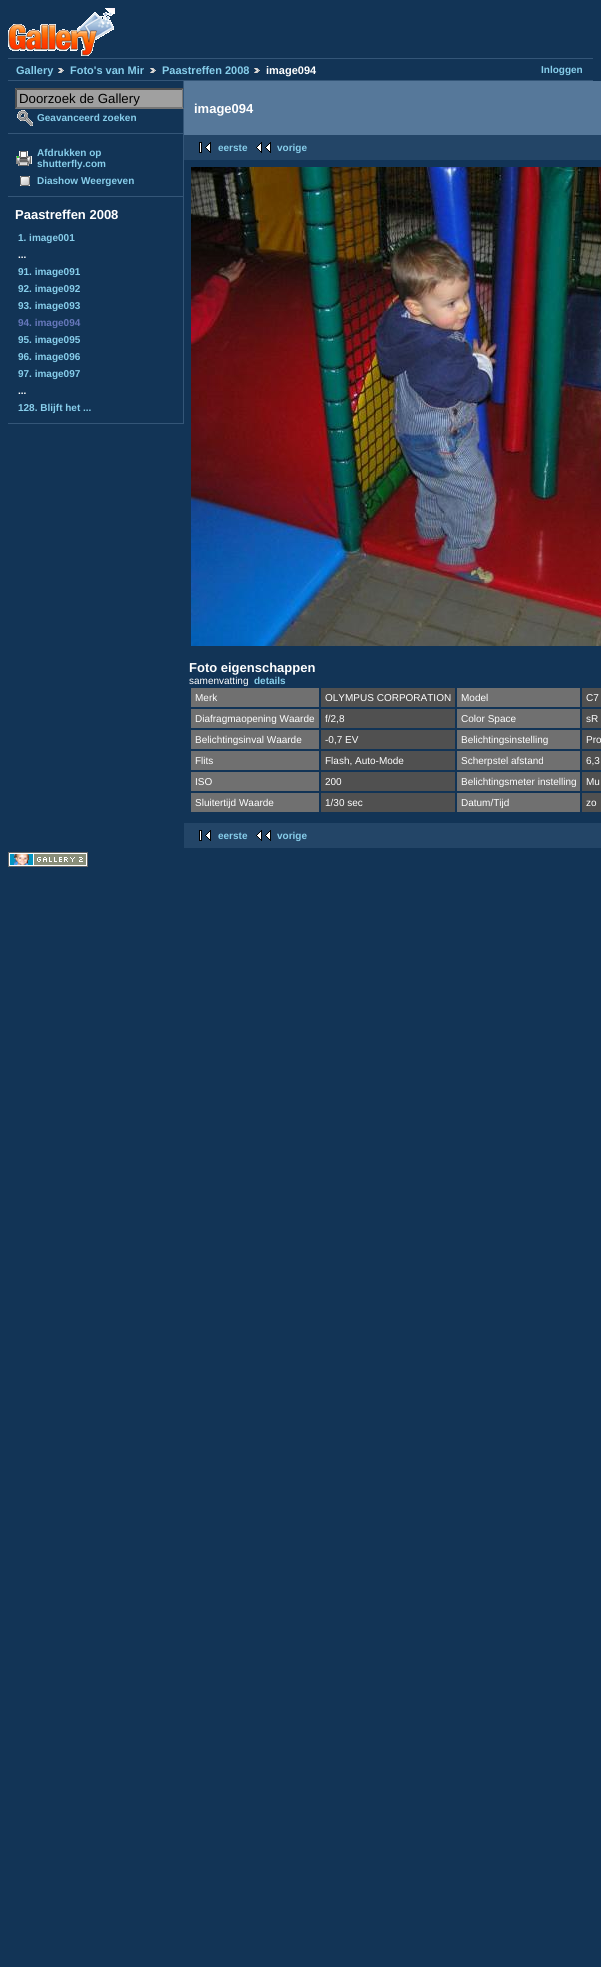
#include <cairo/cairo.h>
#include <math.h>
#include <stddef.h>


static void draw_image(cairo_t *cr, const char *path, double x, double y, double w, double h) {
  cairo_surface_t *image = cairo_image_surface_create_from_png(path);
  cairo_save(cr);
  cairo_set_source_surface(cr, image, x, y);
  cairo_rectangle(cr, x, y, w, h);
  cairo_fill(cr);
  cairo_restore(cr);
  cairo_surface_destroy(image);
}

static void draw(cairo_t *cr) {
  cairo_set_source_rgb(cr, 18 / 255.0, 52 / 255.0, 86 / 255.0);
  cairo_paint(cr);
  draw_image(cr, "images/1.png", 8, 8, 107, 48);
  cairo_set_source_rgb(cr, 52 / 255.0, 86 / 255.0, 120 / 255.0);
  cairo_rectangle(cr, 8, 58, 585, 1);
  cairo_fill(cr);
  cairo_rectangle(cr, 8, 80, 585, 1);
  cairo_fill(cr);
  draw_image(cr, "images/2.png", 58, 68, 6, 5);
  draw_image(cr, "images/2.png", 150, 68, 6, 5);
  draw_image(cr, "images/2.png", 254, 68, 6, 5);
  cairo_rectangle(cr, 183, 81, 1, 343);
  cairo_fill(cr);
  cairo_rectangle(cr, 8, 133, 175, 1);
  cairo_fill(cr);
  cairo_set_source_rgb(cr, 160 / 255.0, 160 / 255.0, 160 / 255.0);
  cairo_rectangle(cr, 15, 88, 168, 21);
  cairo_fill(cr);
  cairo_set_source_rgb(cr, 79 / 255.0, 79 / 255.0, 79 / 255.0);
  cairo_new_path(cr);
  cairo_move_to(cr, 15, 88);
  cairo_line_to(cr, 184, 88);
  cairo_line_to(cr, 182, 90);
  cairo_line_to(cr, 17, 90);
  cairo_close_path(cr);
  cairo_fill(cr);
  cairo_save(cr);
  cairo_rectangle(cr, 8, 81, 175, 343);
  cairo_clip(cr);
  cairo_set_source_rgb(cr, 118 / 255.0, 118 / 255.0, 118 / 255.0);
  cairo_new_path(cr);
  cairo_move_to(cr, 184, 88);
  cairo_line_to(cr, 184, 109);
  cairo_line_to(cr, 182, 107);
  cairo_line_to(cr, 182, 90);
  cairo_close_path(cr);
  cairo_fill(cr);
  cairo_restore(cr);
  cairo_set_source_rgb(cr, 118 / 255.0, 118 / 255.0, 118 / 255.0);
  cairo_new_path(cr);
  cairo_move_to(cr, 184, 109);
  cairo_line_to(cr, 15, 109);
  cairo_line_to(cr, 17, 107);
  cairo_line_to(cr, 182, 107);
  cairo_close_path(cr);
  cairo_fill(cr);
  cairo_set_source_rgb(cr, 79 / 255.0, 79 / 255.0, 79 / 255.0);
  cairo_new_path(cr);
  cairo_move_to(cr, 15, 109);
  cairo_line_to(cr, 15, 88);
  cairo_line_to(cr, 17, 90);
  cairo_line_to(cr, 17, 107);
  cairo_close_path(cr);
  cairo_fill(cr);
  draw_image(cr, "images/3.png", 17, 110, 16, 16);
  cairo_set_source_rgb(cr, 52 / 255.0, 86 / 255.0, 120 / 255.0);
  cairo_rectangle(cr, 8, 196, 175, 1);
  cairo_fill(cr);
  draw_image(cr, "images/4.png", 16, 151, 16, 15);
  draw_image(cr, "images/5.png", 20, 176, 10, 10);
  cairo_rectangle(cr, 8, 423, 175, 1);
  cairo_fill(cr);
  cairo_set_source_rgb(cr, 86 / 255.0, 120 / 255.0, 154 / 255.0);
  cairo_rectangle(cr, 184, 81, 417, 54);
  cairo_fill(cr);
  cairo_set_source_rgb(cr, 35 / 255.0, 69 / 255.0, 103 / 255.0);
  cairo_rectangle(cr, 184, 135, 417, 25);
  cairo_fill(cr);
  draw_image(cr, "images/6.png", 199, 142, 12, 11);
  draw_image(cr, "images/7.png", 256, 142, 15, 11);
  draw_image(cr, "images/8.png", 191, 167, 410, 479);
  cairo_set_source_rgb(cr, 112 / 255.0, 112 / 255.0, 112 / 255.0);
  cairo_rectangle(cr, 191, 688, 128, 19);
  cairo_fill(cr);
  cairo_set_source_rgb(cr, 80 / 255.0, 80 / 255.0, 80 / 255.0);
  cairo_rectangle(cr, 321, 688, 134, 19);
  cairo_fill(cr);
  cairo_set_source_rgb(cr, 112 / 255.0, 112 / 255.0, 112 / 255.0);
  cairo_rectangle(cr, 457, 688, 123, 19);
  cairo_fill(cr);
  cairo_set_source_rgb(cr, 80 / 255.0, 80 / 255.0, 80 / 255.0);
  cairo_rectangle(cr, 582, 688, 19, 19);
  cairo_fill(cr);
  cairo_set_source_rgb(cr, 112 / 255.0, 112 / 255.0, 112 / 255.0);
  cairo_rectangle(cr, 191, 709, 128, 19);
  cairo_fill(cr);
  cairo_set_source_rgb(cr, 80 / 255.0, 80 / 255.0, 80 / 255.0);
  cairo_rectangle(cr, 321, 709, 134, 19);
  cairo_fill(cr);
  cairo_set_source_rgb(cr, 112 / 255.0, 112 / 255.0, 112 / 255.0);
  cairo_rectangle(cr, 457, 709, 123, 19);
  cairo_fill(cr);
  cairo_set_source_rgb(cr, 80 / 255.0, 80 / 255.0, 80 / 255.0);
  cairo_rectangle(cr, 582, 709, 19, 19);
  cairo_fill(cr);
  cairo_set_source_rgb(cr, 112 / 255.0, 112 / 255.0, 112 / 255.0);
  cairo_rectangle(cr, 191, 730, 128, 19);
  cairo_fill(cr);
  cairo_set_source_rgb(cr, 80 / 255.0, 80 / 255.0, 80 / 255.0);
  cairo_rectangle(cr, 321, 730, 134, 19);
  cairo_fill(cr);
  cairo_set_source_rgb(cr, 112 / 255.0, 112 / 255.0, 112 / 255.0);
  cairo_rectangle(cr, 457, 730, 123, 19);
  cairo_fill(cr);
  cairo_set_source_rgb(cr, 80 / 255.0, 80 / 255.0, 80 / 255.0);
  cairo_rectangle(cr, 582, 730, 19, 19);
  cairo_fill(cr);
  cairo_set_source_rgb(cr, 112 / 255.0, 112 / 255.0, 112 / 255.0);
  cairo_rectangle(cr, 191, 751, 128, 19);
  cairo_fill(cr);
  cairo_set_source_rgb(cr, 80 / 255.0, 80 / 255.0, 80 / 255.0);
  cairo_rectangle(cr, 321, 751, 134, 19);
  cairo_fill(cr);
  cairo_set_source_rgb(cr, 112 / 255.0, 112 / 255.0, 112 / 255.0);
  cairo_rectangle(cr, 457, 751, 123, 19);
  cairo_fill(cr);
  cairo_set_source_rgb(cr, 80 / 255.0, 80 / 255.0, 80 / 255.0);
  cairo_rectangle(cr, 582, 751, 19, 19);
  cairo_fill(cr);
  cairo_set_source_rgb(cr, 112 / 255.0, 112 / 255.0, 112 / 255.0);
  cairo_rectangle(cr, 191, 772, 128, 19);
  cairo_fill(cr);
  cairo_set_source_rgb(cr, 80 / 255.0, 80 / 255.0, 80 / 255.0);
  cairo_rectangle(cr, 321, 772, 134, 19);
  cairo_fill(cr);
  cairo_set_source_rgb(cr, 112 / 255.0, 112 / 255.0, 112 / 255.0);
  cairo_rectangle(cr, 457, 772, 123, 19);
  cairo_fill(cr);
  cairo_set_source_rgb(cr, 80 / 255.0, 80 / 255.0, 80 / 255.0);
  cairo_rectangle(cr, 582, 772, 19, 19);
  cairo_fill(cr);
  cairo_set_source_rgb(cr, 112 / 255.0, 112 / 255.0, 112 / 255.0);
  cairo_rectangle(cr, 191, 793, 128, 19);
  cairo_fill(cr);
  cairo_set_source_rgb(cr, 80 / 255.0, 80 / 255.0, 80 / 255.0);
  cairo_rectangle(cr, 321, 793, 134, 19);
  cairo_fill(cr);
  cairo_set_source_rgb(cr, 112 / 255.0, 112 / 255.0, 112 / 255.0);
  cairo_rectangle(cr, 457, 793, 123, 19);
  cairo_fill(cr);
  cairo_set_source_rgb(cr, 80 / 255.0, 80 / 255.0, 80 / 255.0);
  cairo_rectangle(cr, 582, 793, 19, 19);
  cairo_fill(cr);
  cairo_set_source_rgb(cr, 35 / 255.0, 69 / 255.0, 103 / 255.0);
  cairo_rectangle(cr, 184, 823, 417, 25);
  cairo_fill(cr);
  draw_image(cr, "images/6.png", 199, 830, 12, 11);
  draw_image(cr, "images/7.png", 256, 830, 15, 11);
  draw_image(cr, "images/9.png", 8, 852, 80, 15);
  cairo_select_font_face(cr, "Liberation Sans", CAIRO_FONT_SLANT_NORMAL, CAIRO_FONT_WEIGHT_BOLD);
  cairo_set_font_size(cr, 11);
  cairo_set_source_rgb(cr, 135 / 255.0, 206 / 255.0, 235 / 255.0);
  cairo_move_to(cr, 16, 74);
  cairo_show_text(cr, "Gallery");
  cairo_move_to(cr, 70, 74);
  cairo_show_text(cr, "Foto's van Mir");
  cairo_move_to(cr, 162, 74);
  cairo_show_text(cr, "Paastreffen 2008");
  cairo_set_source_rgb(cr, 1, 1, 1);
  cairo_move_to(cr, 266, 74);
  cairo_show_text(cr, "image094");
  cairo_set_font_size(cr, 10);
  cairo_set_source_rgb(cr, 135 / 255.0, 206 / 255.0, 235 / 255.0);
  cairo_move_to(cr, 541, 73);
  cairo_show_text(cr, "Inloggen");
  cairo_select_font_face(cr, "Liberation Sans", CAIRO_FONT_SLANT_NORMAL, CAIRO_FONT_WEIGHT_NORMAL);
  cairo_set_font_size(cr, 13.25);
  cairo_set_source_rgb(cr, 0, 0, 0);
  cairo_move_to(cr, 19, 103);
  cairo_show_text(cr, "Doorzoek de Gallery");
  cairo_select_font_face(cr, "Liberation Sans", CAIRO_FONT_SLANT_NORMAL, CAIRO_FONT_WEIGHT_BOLD);
  cairo_set_font_size(cr, 10);
  cairo_set_source_rgb(cr, 135 / 255.0, 206 / 255.0, 235 / 255.0);
  cairo_move_to(cr, 37, 121);
  cairo_show_text(cr, "Geavanceerd zoeken");
  cairo_move_to(cr, 37, 156);
  cairo_show_text(cr, "Afdrukken op");
  cairo_move_to(cr, 37, 167);
  cairo_show_text(cr, "shutterfly.com");
  cairo_move_to(cr, 37, 184);
  cairo_show_text(cr, "Diashow Weergeven");
  cairo_set_font_size(cr, 13);
  cairo_set_source_rgb(cr, 1, 1, 1);
  cairo_move_to(cr, 15, 219);
  cairo_show_text(cr, "Paastreffen 2008");
  cairo_set_font_size(cr, 10);
  cairo_set_source_rgb(cr, 135 / 255.0, 206 / 255.0, 235 / 255.0);
  cairo_move_to(cr, 18, 241);
  cairo_show_text(cr, "1. image001");
  cairo_set_source_rgb(cr, 1, 1, 1);
  cairo_move_to(cr, 18, 258);
  cairo_show_text(cr, "...");
  cairo_set_source_rgb(cr, 135 / 255.0, 206 / 255.0, 235 / 255.0);
  cairo_move_to(cr, 18, 275);
  cairo_show_text(cr, "91. image091");
  cairo_move_to(cr, 18, 292);
  cairo_show_text(cr, "92. image092");
  cairo_move_to(cr, 18, 309);
  cairo_show_text(cr, "93. image093");
  cairo_set_source_rgb(cr, 102 / 255.0, 119 / 255.0, 187 / 255.0);
  cairo_move_to(cr, 18, 326);
  cairo_show_text(cr, "94. image094");
  cairo_set_source_rgb(cr, 135 / 255.0, 206 / 255.0, 235 / 255.0);
  cairo_move_to(cr, 18, 343);
  cairo_show_text(cr, "95. image095");
  cairo_move_to(cr, 18, 360);
  cairo_show_text(cr, "96. image096");
  cairo_move_to(cr, 18, 377);
  cairo_show_text(cr, "97. image097");
  cairo_set_source_rgb(cr, 1, 1, 1);
  cairo_move_to(cr, 18, 394);
  cairo_show_text(cr, "...");
  cairo_set_source_rgb(cr, 135 / 255.0, 206 / 255.0, 235 / 255.0);
  cairo_move_to(cr, 18, 411);
  cairo_show_text(cr, "128. Blijft het ...");
  cairo_set_font_size(cr, 13);
  cairo_set_source_rgb(cr, 1, 1, 1);
  cairo_move_to(cr, 194, 113);
  cairo_show_text(cr, "image094");
  cairo_set_font_size(cr, 10);
  cairo_set_source_rgb(cr, 135 / 255.0, 206 / 255.0, 235 / 255.0);
  cairo_move_to(cr, 218, 151);
  cairo_show_text(cr, "eerste");
  cairo_move_to(cr, 277, 151);
  cairo_show_text(cr, "vorige");
  cairo_set_font_size(cr, 13);
  cairo_set_source_rgb(cr, 1, 1, 1);
  cairo_move_to(cr, 189, 672);
  cairo_show_text(cr, "Foto eigenschappen");
  cairo_select_font_face(cr, "Liberation Sans", CAIRO_FONT_SLANT_NORMAL, CAIRO_FONT_WEIGHT_NORMAL);
  cairo_set_font_size(cr, 10);
  cairo_move_to(cr, 189, 684);
  cairo_show_text(cr, "samenvatting");
  cairo_select_font_face(cr, "Liberation Sans", CAIRO_FONT_SLANT_NORMAL, CAIRO_FONT_WEIGHT_BOLD);
  cairo_set_source_rgb(cr, 135 / 255.0, 206 / 255.0, 235 / 255.0);
  cairo_move_to(cr, 254, 684);
  cairo_show_text(cr, "details");
  cairo_select_font_face(cr, "Liberation Sans", CAIRO_FONT_SLANT_NORMAL, CAIRO_FONT_WEIGHT_NORMAL);
  cairo_set_source_rgb(cr, 1, 1, 1);
  cairo_move_to(cr, 195, 701);
  cairo_show_text(cr, "Merk");
  cairo_move_to(cr, 325, 701);
  cairo_show_text(cr, "OLYMPUS CORPORATION");
  cairo_move_to(cr, 461, 701);
  cairo_show_text(cr, "Model");
  cairo_move_to(cr, 586, 701);
  cairo_show_text(cr, "C7");
  cairo_move_to(cr, 195, 722);
  cairo_show_text(cr, "Diafragmaopening Waarde");
  cairo_move_to(cr, 325, 722);
  cairo_show_text(cr, "f/2,8");
  cairo_move_to(cr, 461, 722);
  cairo_show_text(cr, "Color Space");
  cairo_move_to(cr, 586, 722);
  cairo_show_text(cr, "sR");
  cairo_move_to(cr, 195, 743);
  cairo_show_text(cr, "Belichtingsinval Waarde");
  cairo_move_to(cr, 325, 743);
  cairo_show_text(cr, "-0,7 EV");
  cairo_move_to(cr, 461, 743);
  cairo_show_text(cr, "Belichtingsinstelling");
  cairo_move_to(cr, 586, 743);
  cairo_show_text(cr, "Pro");
  cairo_move_to(cr, 195, 764);
  cairo_show_text(cr, "Flits");
  cairo_move_to(cr, 325, 764);
  cairo_show_text(cr, "Flash, Auto-Mode");
  cairo_move_to(cr, 461, 764);
  cairo_show_text(cr, "Scherpstel afstand");
  cairo_move_to(cr, 586, 764);
  cairo_show_text(cr, "6,3");
  cairo_move_to(cr, 195, 785);
  cairo_show_text(cr, "ISO");
  cairo_move_to(cr, 325, 785);
  cairo_show_text(cr, "200");
  cairo_move_to(cr, 461, 785);
  cairo_show_text(cr, "Belichtingsmeter instelling");
  cairo_move_to(cr, 586, 785);
  cairo_show_text(cr, "Mu");
  cairo_move_to(cr, 195, 806);
  cairo_show_text(cr, "Sluitertijd Waarde");
  cairo_move_to(cr, 325, 806);
  cairo_show_text(cr, "1/30 sec");
  cairo_move_to(cr, 461, 806);
  cairo_show_text(cr, "Datum/Tijd");
  cairo_move_to(cr, 586, 806);
  cairo_show_text(cr, "zo");
  cairo_select_font_face(cr, "Liberation Sans", CAIRO_FONT_SLANT_NORMAL, CAIRO_FONT_WEIGHT_BOLD);
  cairo_set_source_rgb(cr, 135 / 255.0, 206 / 255.0, 235 / 255.0);
  cairo_move_to(cr, 218, 839);
  cairo_show_text(cr, "eerste");
  cairo_move_to(cr, 277, 839);
  cairo_show_text(cr, "vorige");
}

int main(void) {
  cairo_surface_t *surface = cairo_image_surface_create(CAIRO_FORMAT_RGB24, 601, 1967);
  cairo_t *cr = cairo_create(surface);
  cairo_font_options_t *options = cairo_font_options_create();
  cairo_font_options_set_hint_metrics(options, CAIRO_HINT_METRICS_OFF);
  cairo_font_options_set_hint_style(options, CAIRO_HINT_STYLE_NONE);
  cairo_set_font_options(cr, options);
  cairo_set_miter_limit(cr, 4);
  draw(cr);
  cairo_surface_write_to_png(surface, "out.png");
  cairo_font_options_destroy(options);
  cairo_destroy(cr);
  cairo_surface_destroy(surface);
  return 0;
}
